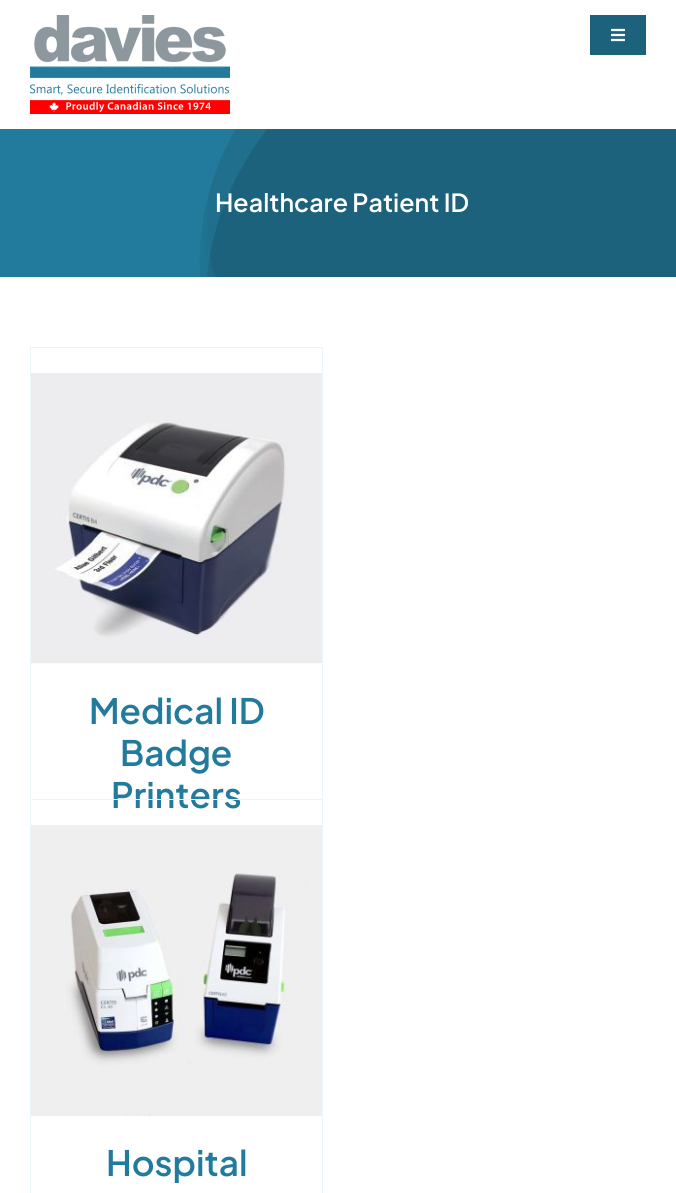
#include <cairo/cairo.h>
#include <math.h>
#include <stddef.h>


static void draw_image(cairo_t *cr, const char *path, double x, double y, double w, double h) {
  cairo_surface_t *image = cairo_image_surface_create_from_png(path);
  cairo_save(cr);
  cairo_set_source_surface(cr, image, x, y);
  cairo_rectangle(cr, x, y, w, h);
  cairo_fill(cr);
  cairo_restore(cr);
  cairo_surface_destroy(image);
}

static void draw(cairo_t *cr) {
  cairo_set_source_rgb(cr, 1, 1, 1);
  cairo_paint(cr);
  draw_image(cr, "images/1.png", 30, 15, 200, 99);
  cairo_set_source_rgb(cr, 28 / 255.0, 98 / 255.0, 125 / 255.0);
  cairo_rectangle(cr, 590, 15, 56, 40);
  cairo_fill(cr);
  draw_image(cr, "images/2.png", 611, 28, 14, 14);
  cairo_rectangle(cr, 0, 129, 676, 148);
  cairo_fill(cr);
  draw_image(cr, "images/3.png", 0, 129, 267, 148);
  cairo_set_source_rgb(cr, 234 / 255.0, 246 / 255.0, 250 / 255.0);
  cairo_rectangle(cr, 30, 347, 293, 1);
  cairo_fill(cr);
  cairo_rectangle(cr, 322, 347, 1, 452);
  cairo_fill(cr);
  cairo_rectangle(cr, 30, 347, 1, 452);
  cairo_fill(cr);
  draw_image(cr, "images/4.png", 31, 373, 291, 291);
  draw_image(cr, "images/5.png", 31, 825, 291, 291);
  cairo_select_font_face(cr, "Plus Jakarta Sans SemiBold", CAIRO_FONT_SLANT_NORMAL, CAIRO_FONT_WEIGHT_NORMAL);
  cairo_set_font_size(cr, 25);
  cairo_set_source_rgb(cr, 1, 1, 1);
  cairo_move_to(cr, 215, 212);
  cairo_show_text(cr, "Healthcare Patient ID");
  cairo_set_font_size(cr, 35);
  cairo_set_source_rgb(cr, 34 / 255.0, 123 / 255.0, 157 / 255.0);
  cairo_move_to(cr, 89, 724);
  cairo_show_text(cr, "Medical ID");
  cairo_move_to(cr, 120, 766);
  cairo_show_text(cr, "Badge");
  cairo_move_to(cr, 111, 808);
  cairo_show_text(cr, "Printers");
  cairo_set_source_rgb(cr, 234 / 255.0, 246 / 255.0, 250 / 255.0);
  cairo_rectangle(cr, 30, 799, 293, 1);
  cairo_fill(cr);
  cairo_rectangle(cr, 322, 799, 1, 394);
  cairo_fill(cr);
  cairo_rectangle(cr, 30, 799, 1, 394);
  cairo_fill(cr);
  cairo_set_source_rgb(cr, 34 / 255.0, 123 / 255.0, 157 / 255.0);
  cairo_move_to(cr, 106, 1176);
  cairo_show_text(cr, "Hospital");
}

int main(void) {
  cairo_surface_t *surface = cairo_image_surface_create(CAIRO_FORMAT_RGB24, 676, 1193);
  cairo_t *cr = cairo_create(surface);
  cairo_font_options_t *options = cairo_font_options_create();
  cairo_font_options_set_hint_metrics(options, CAIRO_HINT_METRICS_OFF);
  cairo_font_options_set_hint_style(options, CAIRO_HINT_STYLE_NONE);
  cairo_set_font_options(cr, options);
  cairo_set_miter_limit(cr, 4);
  draw(cr);
  cairo_surface_write_to_png(surface, "out.png");
  cairo_font_options_destroy(options);
  cairo_destroy(cr);
  cairo_surface_destroy(surface);
  return 0;
}
